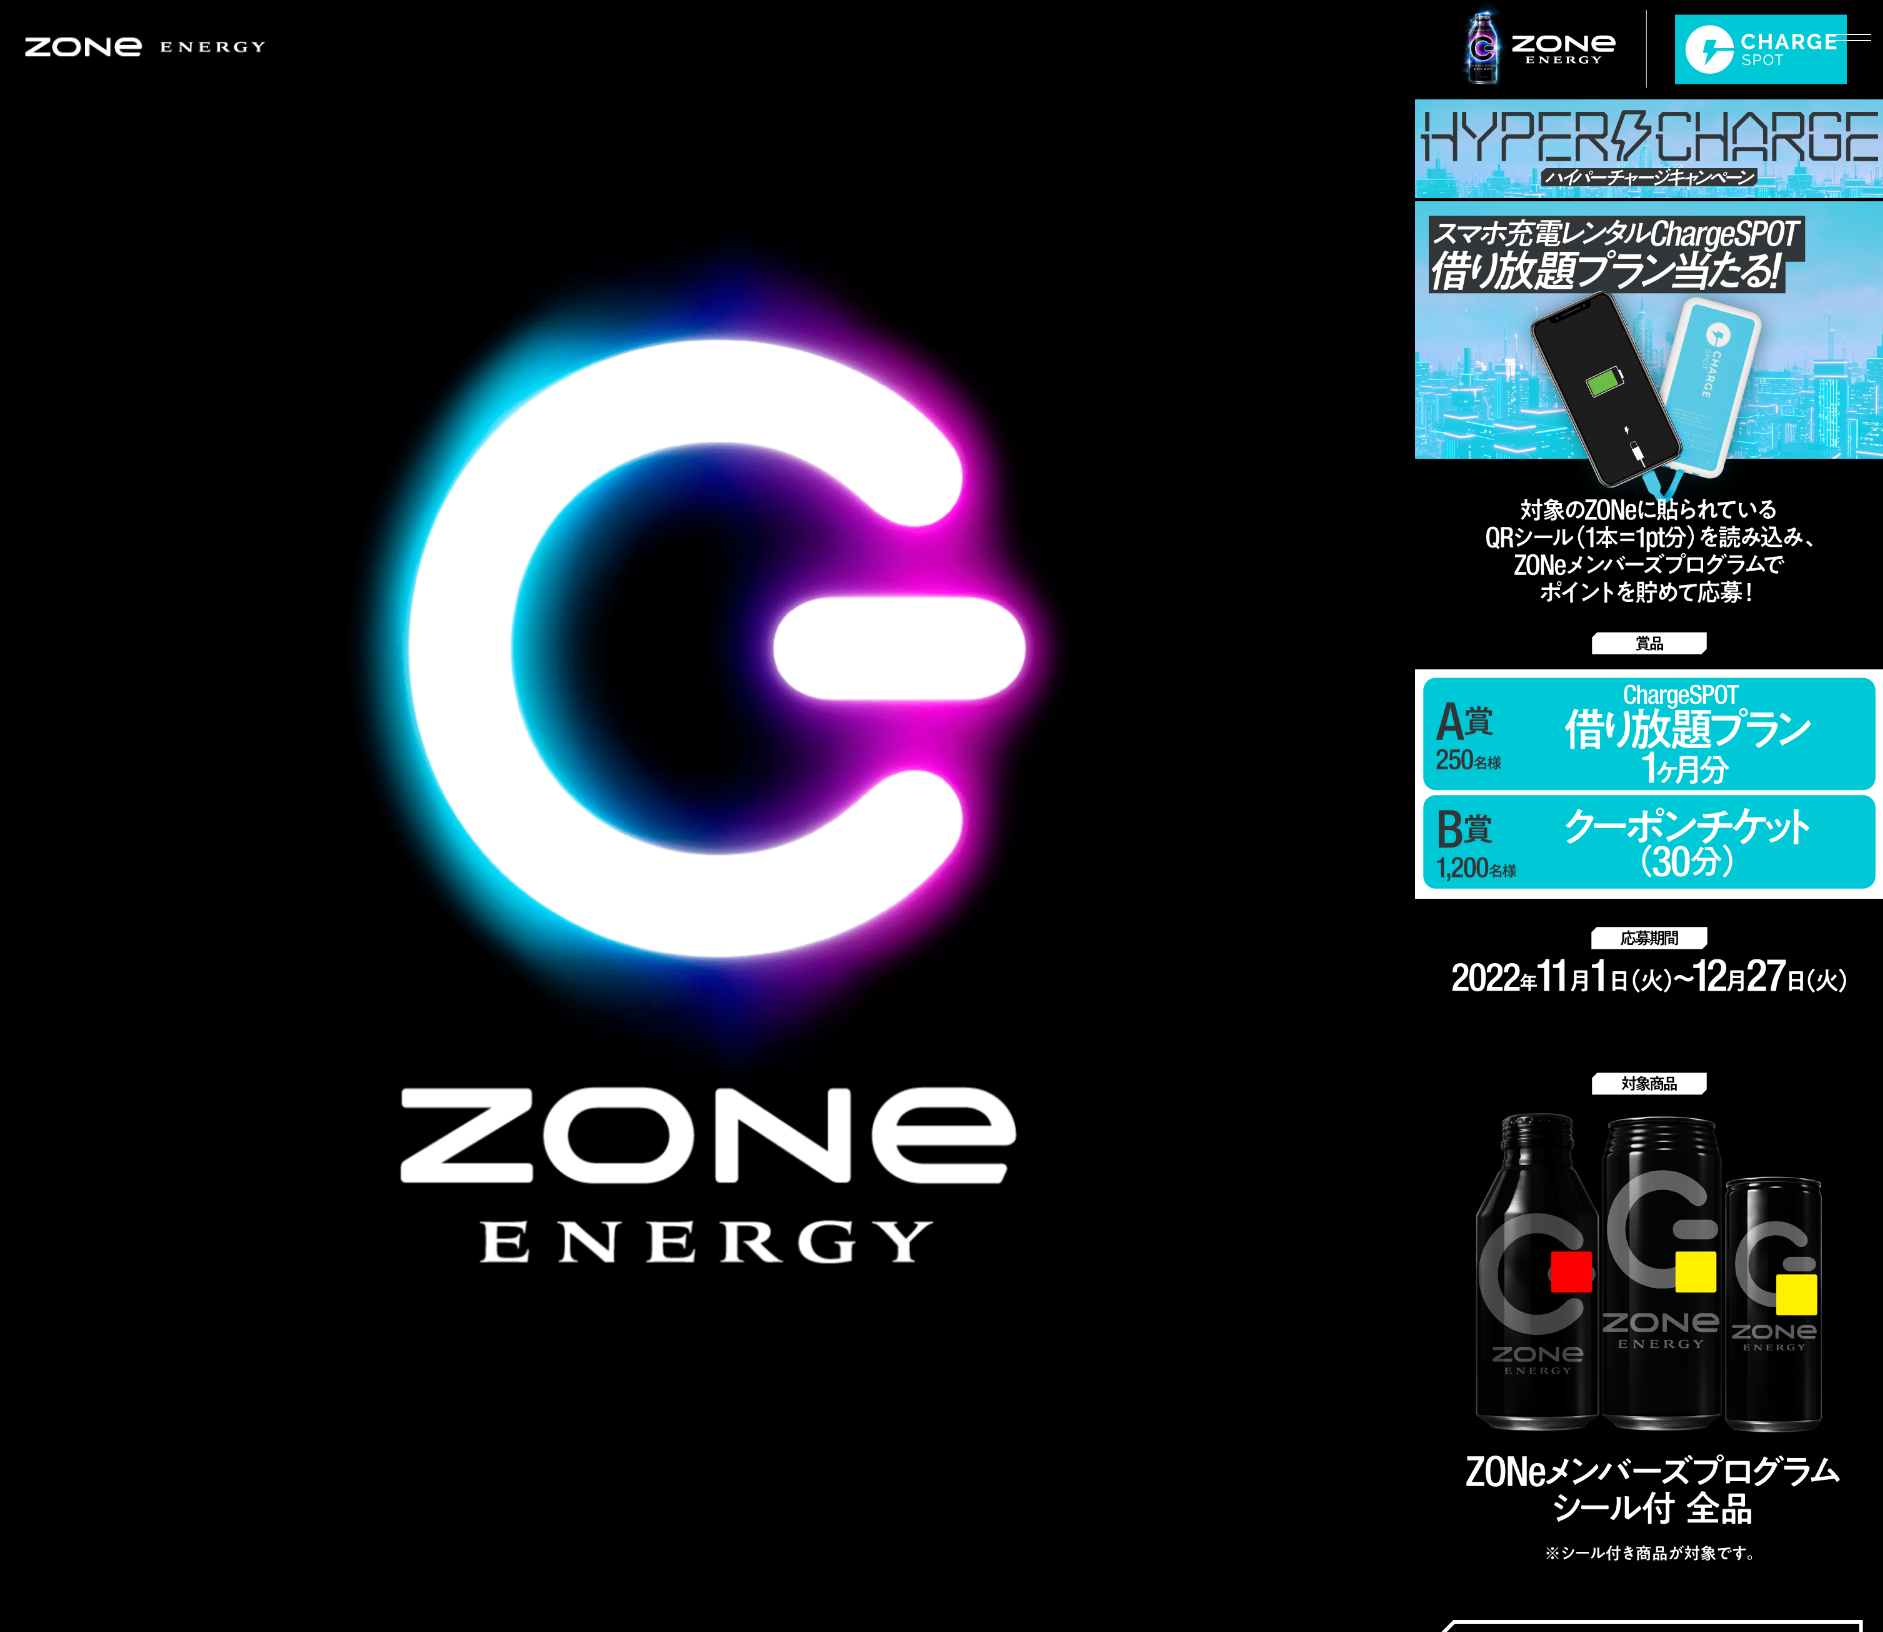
#include <cairo/cairo.h>
#include <math.h>
#include <stddef.h>


static void draw_image(cairo_t *cr, const char *path, double x, double y, double w, double h) {
  cairo_surface_t *image = cairo_image_surface_create_from_png(path);
  cairo_save(cr);
  cairo_set_source_surface(cr, image, x, y);
  cairo_rectangle(cr, x, y, w, h);
  cairo_fill(cr);
  cairo_restore(cr);
  cairo_surface_destroy(image);
}

static void draw(cairo_t *cr) {
  cairo_set_source_rgb(cr, 0, 0, 0);
  cairo_paint(cr);
  draw_image(cr, "images/1.png", 25, 37, 240, 20);
  draw_image(cr, "images/2.png", 1415, 3, 468, 990);
  draw_image(cr, "images/3.png", 1466, 1072, 374, 489);
  draw_image(cr, "images/4.png", 1441, 1620, 422, 12);
  cairo_set_source_rgb(cr, 1, 1, 1);
  cairo_rectangle(cr, 1834, 34, 37, 1);
  cairo_fill(cr);
  cairo_rectangle(cr, 1834, 40, 37, 1);
  cairo_fill(cr);
  draw_image(cr, "images/5.png", 347, 231, 722, 1033);
}

int main(void) {
  cairo_surface_t *surface = cairo_image_surface_create(CAIRO_FORMAT_RGB24, 1883, 1632);
  cairo_t *cr = cairo_create(surface);
  cairo_font_options_t *options = cairo_font_options_create();
  cairo_font_options_set_hint_metrics(options, CAIRO_HINT_METRICS_OFF);
  cairo_font_options_set_hint_style(options, CAIRO_HINT_STYLE_NONE);
  cairo_set_font_options(cr, options);
  cairo_set_miter_limit(cr, 4);
  draw(cr);
  cairo_surface_write_to_png(surface, "out.png");
  cairo_font_options_destroy(options);
  cairo_destroy(cr);
  cairo_surface_destroy(surface);
  return 0;
}
